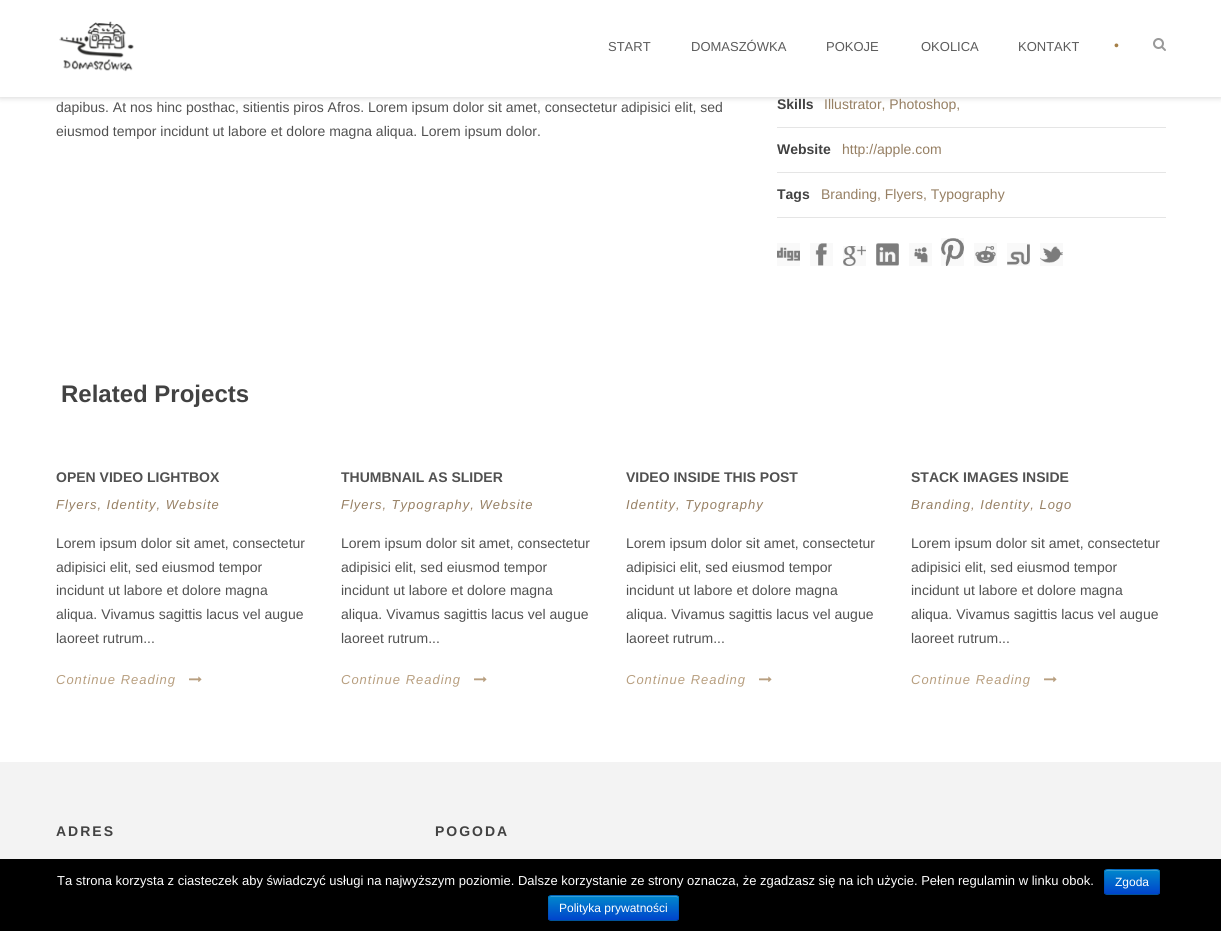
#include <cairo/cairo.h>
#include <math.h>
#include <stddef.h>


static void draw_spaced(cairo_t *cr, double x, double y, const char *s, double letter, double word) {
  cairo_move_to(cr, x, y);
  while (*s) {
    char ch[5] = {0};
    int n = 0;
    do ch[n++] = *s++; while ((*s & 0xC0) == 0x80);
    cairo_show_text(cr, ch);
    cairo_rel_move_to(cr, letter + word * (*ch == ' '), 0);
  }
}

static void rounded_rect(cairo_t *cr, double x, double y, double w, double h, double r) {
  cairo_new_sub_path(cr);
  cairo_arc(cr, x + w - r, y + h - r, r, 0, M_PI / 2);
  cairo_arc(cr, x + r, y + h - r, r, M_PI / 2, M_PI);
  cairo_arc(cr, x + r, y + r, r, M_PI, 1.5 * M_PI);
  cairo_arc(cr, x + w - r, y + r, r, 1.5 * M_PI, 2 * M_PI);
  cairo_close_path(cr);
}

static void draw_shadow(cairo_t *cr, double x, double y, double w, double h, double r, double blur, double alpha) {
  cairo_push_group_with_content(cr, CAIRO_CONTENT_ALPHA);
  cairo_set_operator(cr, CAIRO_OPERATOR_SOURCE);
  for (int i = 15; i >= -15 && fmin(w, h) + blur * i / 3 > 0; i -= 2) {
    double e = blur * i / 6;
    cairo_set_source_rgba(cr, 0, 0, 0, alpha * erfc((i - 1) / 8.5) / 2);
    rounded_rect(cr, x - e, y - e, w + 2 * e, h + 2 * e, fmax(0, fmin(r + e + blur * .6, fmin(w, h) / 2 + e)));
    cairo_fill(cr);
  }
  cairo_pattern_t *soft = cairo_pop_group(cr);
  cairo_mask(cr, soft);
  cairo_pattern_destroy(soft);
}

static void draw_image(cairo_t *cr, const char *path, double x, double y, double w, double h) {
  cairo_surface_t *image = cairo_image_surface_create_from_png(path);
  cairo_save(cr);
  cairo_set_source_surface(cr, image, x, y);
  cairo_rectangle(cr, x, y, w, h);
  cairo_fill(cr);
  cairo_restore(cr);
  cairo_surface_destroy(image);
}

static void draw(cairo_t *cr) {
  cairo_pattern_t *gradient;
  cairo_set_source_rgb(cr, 1, 1, 1);
  cairo_paint(cr);
  cairo_set_source_rgb(cr, 0, 0, 0);
  draw_shadow(cr, 0, 1, 1221, 97, 0, 3, 0.15);
  cairo_set_source_rgb(cr, 1, 1, 1);
  cairo_rectangle(cr, 0, 0, 1221, 97);
  cairo_fill(cr);
  draw_image(cr, "images/1.png", 59, 21, 75, 51);
  draw_image(cr, "images/2.png", 1153, 38, 13, 13);
  cairo_set_source_rgb(cr, 229 / 255.0, 229 / 255.0, 229 / 255.0);
  cairo_rectangle(cr, 777, 127, 389, 1);
  cairo_fill(cr);
  cairo_rectangle(cr, 777, 172, 389, 1);
  cairo_fill(cr);
  cairo_rectangle(cr, 777, 217, 389, 1);
  cairo_fill(cr);
  cairo_set_source_rgb(cr, 249 / 255.0, 249 / 255.0, 249 / 255.0);
  cairo_rectangle(cr, 777, 243, 23, 23);
  cairo_fill(cr);
  draw_image(cr, "images/3.png", 777, 247, 23, 14);
  cairo_rectangle(cr, 810, 243, 23, 23);
  cairo_fill(cr);
  draw_image(cr, "images/4.png", 815, 243, 12, 23);
  cairo_rectangle(cr, 843, 246, 23, 20);
  cairo_fill(cr);
  draw_image(cr, "images/5.png", 843, 246, 23, 20);
  cairo_rectangle(cr, 876, 243, 23, 23);
  cairo_fill(cr);
  draw_image(cr, "images/6.png", 876, 243, 23, 23);
  cairo_rectangle(cr, 909, 243, 23, 23);
  cairo_fill(cr);
  draw_image(cr, "images/7.png", 914, 247, 14, 16);
  cairo_rectangle(cr, 941, 238, 23, 28);
  cairo_fill(cr);
  draw_image(cr, "images/8.png", 941, 238, 23, 28);
  cairo_rectangle(cr, 974, 243, 23, 23);
  cairo_fill(cr);
  draw_image(cr, "images/9.png", 975, 246, 21, 17);
  cairo_rectangle(cr, 1007, 243, 23, 23);
  cairo_fill(cr);
  draw_image(cr, "images/10.png", 1007, 244, 23, 21);
  cairo_rectangle(cr, 1040, 243, 23, 23);
  cairo_fill(cr);
  draw_image(cr, "images/11.png", 1040, 246, 23, 17);
  draw_image(cr, "images/12.png", 189, 676, 13, 6);
  draw_image(cr, "images/12.png", 474, 676, 13, 6);
  draw_image(cr, "images/12.png", 759, 676, 13, 6);
  draw_image(cr, "images/12.png", 1044, 676, 13, 6);
  cairo_set_source_rgb(cr, 243 / 255.0, 243 / 255.0, 243 / 255.0);
  cairo_rectangle(cr, 0, 762, 1221, 97);
  cairo_fill(cr);
  cairo_set_source_rgb(cr, 0, 0, 0);
  cairo_rectangle(cr, 0, 859, 1221, 72);
  cairo_fill(cr);
  cairo_set_source_rgb(cr, 0, 109 / 255.0, 204 / 255.0);
  rounded_rect(cr, 1104, 869, 56, 26, 3);
  cairo_fill(cr);
  cairo_save(cr);
  rounded_rect(cr, 1104, 869, 56, 26, 3);
  cairo_clip(cr);
  gradient = cairo_pattern_create_linear(1132, 870, 1132, 894);
  cairo_pattern_add_color_stop_rgba(gradient, 0, 0, 136 / 255.0, 204 / 255.0, 1);
  cairo_pattern_add_color_stop_rgba(gradient, 1, 0, 68 / 255.0, 204 / 255.0, 1);
  cairo_set_source(cr, gradient);
  cairo_pattern_destroy(gradient);
  cairo_rectangle(cr, 1104, 870, 56, 24);
  cairo_fill(cr);
  cairo_restore(cr);
  cairo_set_source_rgb(cr, 51 / 255.0, 159 / 255.0, 214 / 255.0);
  cairo_new_path(cr);
  cairo_move_to(cr, 1107, 871);
  cairo_line_to(cr, 1157, 871);
  cairo_curve_to(cr, 1158, 871, 1159, 872, 1159, 873);
  cairo_curve_to(cr, 1159, 868, 1153, 870, 1149, 870);
  cairo_line_to(cr, 1115, 870);
  cairo_curve_to(cr, 1111, 870, 1105, 868, 1105, 873);
  cairo_curve_to(cr, 1105, 872, 1106, 871, 1107, 871);
  cairo_close_path(cr);
  cairo_fill(cr);
  cairo_new_path(cr);
  cairo_move_to(cr, 1159, 894);
  cairo_line_to(cr, 1157, 894.5);
  cairo_line_to(cr, 1107, 894.5);
  cairo_line_to(cr, 1105, 894);
  cairo_set_source_rgba(cr, 0, 0, 0, 0.25);
  cairo_set_line_width(cr, 1);
  cairo_stroke(cr);
  cairo_new_path(cr);
  cairo_move_to(cr, 1105, 894);
  cairo_curve_to(cr, 1103.5, 892, 1104.5, 884.5, 1104.5, 882);
  cairo_curve_to(cr, 1104.5, 868, 1102, 869.5, 1115.5, 869.5);
  cairo_line_to(cr, 1148.5, 869.5);
  cairo_curve_to(cr, 1162, 869.5, 1159.5, 868, 1159.5, 882);
  cairo_curve_to(cr, 1159.5, 884.5, 1160.5, 892, 1159, 894);
  cairo_set_source_rgba(cr, 0, 0, 0, 0.1);
  cairo_stroke(cr);
  cairo_set_source_rgb(cr, 0, 109 / 255.0, 204 / 255.0);
  rounded_rect(cr, 548, 895, 131, 26, 3);
  cairo_fill(cr);
  cairo_save(cr);
  rounded_rect(cr, 548, 895, 131, 26, 3);
  cairo_clip(cr);
  gradient = cairo_pattern_create_linear(614, 896, 614, 920);
  cairo_pattern_add_color_stop_rgba(gradient, 0, 0, 136 / 255.0, 204 / 255.0, 1);
  cairo_pattern_add_color_stop_rgba(gradient, 1, 0, 68 / 255.0, 204 / 255.0, 1);
  cairo_set_source(cr, gradient);
  cairo_pattern_destroy(gradient);
  cairo_rectangle(cr, 548, 896, 131, 24);
  cairo_fill(cr);
  cairo_restore(cr);
  cairo_set_source_rgba(cr, 1, 1, 1, 0.2);
  cairo_new_path(cr);
  cairo_move_to(cr, 551, 897);
  cairo_line_to(cr, 676, 897);
  cairo_curve_to(cr, 677, 897, 678, 898, 678, 899);
  cairo_curve_to(cr, 678, 898, 678, 897, 677, 896);
  cairo_line_to(cr, 551, 896);
  cairo_line_to(cr, 550, 897);
  cairo_line_to(cr, 549, 899);
  cairo_curve_to(cr, 549, 898, 550, 897, 551, 897);
  cairo_close_path(cr);
  cairo_fill(cr);
  cairo_new_path(cr);
  cairo_move_to(cr, 678, 920);
  cairo_line_to(cr, 676, 920.5);
  cairo_line_to(cr, 572, 920.5);
  cairo_line_to(cr, 551, 920.5);
  cairo_line_to(cr, 549, 920);
  cairo_set_source_rgba(cr, 0, 0, 0, 0.25);
  cairo_stroke(cr);
  cairo_new_path(cr);
  cairo_move_to(cr, 549, 920);
  cairo_curve_to(cr, 547.5, 918, 548.5, 910.5, 548.5, 908);
  cairo_line_to(cr, 548.5, 901.5);
  cairo_curve_to(cr, 548.5, 899.5, 548, 895.5, 551, 895.5);
  cairo_line_to(cr, 676, 895.5);
  cairo_curve_to(cr, 679, 895.5, 678.5, 899.5, 678.5, 901.5);
  cairo_line_to(cr, 678.5, 908);
  cairo_curve_to(cr, 678.5, 910.5, 679.5, 918, 678, 920);
  cairo_set_source_rgba(cr, 0, 0, 0, 0.1);
  cairo_stroke(cr);
  cairo_select_font_face(cr, "Liberation Sans", CAIRO_FONT_SLANT_NORMAL, CAIRO_FONT_WEIGHT_NORMAL);
  cairo_set_font_size(cr, 13);
  cairo_set_source_rgb(cr, 91 / 255.0, 91 / 255.0, 91 / 255.0);
  cairo_move_to(cr, 608, 51);
  cairo_show_text(cr, "START");
  cairo_move_to(cr, 691, 51);
  cairo_show_text(cr, "DOMASZÓWKA");
  cairo_move_to(cr, 826, 51);
  cairo_show_text(cr, "POKOJE");
  cairo_move_to(cr, 921, 51);
  cairo_show_text(cr, "OKOLICA");
  cairo_move_to(cr, 1018, 51);
  cairo_show_text(cr, "KONTAKT");
  cairo_set_font_size(cr, 14);
  cairo_set_source_rgb(cr, 165 / 255.0, 127 / 255.0, 71 / 255.0);
  cairo_move_to(cr, 1114, 50);
  cairo_show_text(cr, "•");
  cairo_set_source_rgb(cr, 81 / 255.0, 81 / 255.0, 81 / 255.0);
  cairo_move_to(cr, 56, 112);
  cairo_show_text(cr, "dapibus. At nos hinc posthac, sitientis piros Afros. Lorem ipsum dolor sit amet, consectetur adipisici elit, sed");
  cairo_move_to(cr, 56, 136);
  cairo_show_text(cr, "eiusmod tempor incidunt ut labore et dolore magna aliqua. Lorem ipsum dolor.");
  cairo_select_font_face(cr, "Liberation Sans", CAIRO_FONT_SLANT_NORMAL, CAIRO_FONT_WEIGHT_BOLD);
  cairo_set_source_rgb(cr, 66 / 255.0, 66 / 255.0, 66 / 255.0);
  cairo_move_to(cr, 777, 109);
  cairo_show_text(cr, "Skills");
  cairo_select_font_face(cr, "Liberation Sans", CAIRO_FONT_SLANT_NORMAL, CAIRO_FONT_WEIGHT_NORMAL);
  cairo_set_source_rgb(cr, 150 / 255.0, 127 / 255.0, 99 / 255.0);
  cairo_move_to(cr, 824, 109);
  cairo_show_text(cr, "Illustrator, Photoshop,");
  cairo_select_font_face(cr, "Liberation Sans", CAIRO_FONT_SLANT_NORMAL, CAIRO_FONT_WEIGHT_BOLD);
  cairo_set_source_rgb(cr, 66 / 255.0, 66 / 255.0, 66 / 255.0);
  cairo_move_to(cr, 777, 154);
  cairo_show_text(cr, "Website");
  cairo_select_font_face(cr, "Liberation Sans", CAIRO_FONT_SLANT_NORMAL, CAIRO_FONT_WEIGHT_NORMAL);
  cairo_set_source_rgb(cr, 150 / 255.0, 127 / 255.0, 99 / 255.0);
  cairo_move_to(cr, 842, 154);
  cairo_show_text(cr, "http://apple.com");
  cairo_select_font_face(cr, "Liberation Sans", CAIRO_FONT_SLANT_NORMAL, CAIRO_FONT_WEIGHT_BOLD);
  cairo_set_source_rgb(cr, 66 / 255.0, 66 / 255.0, 66 / 255.0);
  cairo_move_to(cr, 777, 199);
  cairo_show_text(cr, "Tags");
  cairo_select_font_face(cr, "Liberation Sans", CAIRO_FONT_SLANT_NORMAL, CAIRO_FONT_WEIGHT_NORMAL);
  cairo_set_source_rgb(cr, 150 / 255.0, 127 / 255.0, 99 / 255.0);
  cairo_move_to(cr, 821, 199);
  cairo_show_text(cr, "Branding, Flyers, Typography");
  cairo_select_font_face(cr, "Liberation Sans", CAIRO_FONT_SLANT_NORMAL, CAIRO_FONT_WEIGHT_BOLD);
  cairo_set_font_size(cr, 24);
  cairo_set_source_rgb(cr, 66 / 255.0, 66 / 255.0, 66 / 255.0);
  cairo_move_to(cr, 61, 402);
  cairo_show_text(cr, "Related Projects");
  cairo_set_font_size(cr, 14);
  cairo_set_source_rgb(cr, 81 / 255.0, 81 / 255.0, 81 / 255.0);
  cairo_move_to(cr, 56, 482);
  cairo_show_text(cr, "OPEN VIDEO LIGHTBOX");
  cairo_select_font_face(cr, "Liberation Sans", CAIRO_FONT_SLANT_ITALIC, CAIRO_FONT_WEIGHT_NORMAL);
  cairo_set_font_size(cr, 13);
  cairo_set_source_rgb(cr, 150 / 255.0, 127 / 255.0, 99 / 255.0);
  draw_spaced(cr, 56, 509, "Flyers, Identity, Website", 1, 0);
  cairo_select_font_face(cr, "Liberation Sans", CAIRO_FONT_SLANT_NORMAL, CAIRO_FONT_WEIGHT_NORMAL);
  cairo_set_font_size(cr, 14);
  cairo_set_source_rgb(cr, 81 / 255.0, 81 / 255.0, 81 / 255.0);
  cairo_move_to(cr, 56, 548);
  cairo_show_text(cr, "Lorem ipsum dolor sit amet, consectetur");
  cairo_move_to(cr, 56, 572);
  cairo_show_text(cr, "adipisici elit, sed eiusmod tempor");
  cairo_move_to(cr, 56, 595);
  cairo_show_text(cr, "incidunt ut labore et dolore magna");
  cairo_move_to(cr, 56, 619);
  cairo_show_text(cr, "aliqua. Vivamus sagittis lacus vel augue");
  cairo_move_to(cr, 56, 643);
  cairo_show_text(cr, "laoreet rutrum...");
  cairo_select_font_face(cr, "Liberation Sans", CAIRO_FONT_SLANT_ITALIC, CAIRO_FONT_WEIGHT_NORMAL);
  cairo_set_font_size(cr, 13);
  cairo_set_source_rgb(cr, 184 / 255.0, 159 / 255.0, 128 / 255.0);
  draw_spaced(cr, 56, 684, "Continue Reading", 1, 0);
  cairo_select_font_face(cr, "Liberation Sans", CAIRO_FONT_SLANT_NORMAL, CAIRO_FONT_WEIGHT_BOLD);
  cairo_set_font_size(cr, 14);
  cairo_set_source_rgb(cr, 81 / 255.0, 81 / 255.0, 81 / 255.0);
  cairo_move_to(cr, 341, 482);
  cairo_show_text(cr, "THUMBNAIL AS SLIDER");
  cairo_select_font_face(cr, "Liberation Sans", CAIRO_FONT_SLANT_ITALIC, CAIRO_FONT_WEIGHT_NORMAL);
  cairo_set_font_size(cr, 13);
  cairo_set_source_rgb(cr, 150 / 255.0, 127 / 255.0, 99 / 255.0);
  draw_spaced(cr, 341, 509, "Flyers, Typography, Website", 1, 0);
  cairo_select_font_face(cr, "Liberation Sans", CAIRO_FONT_SLANT_NORMAL, CAIRO_FONT_WEIGHT_NORMAL);
  cairo_set_font_size(cr, 14);
  cairo_set_source_rgb(cr, 81 / 255.0, 81 / 255.0, 81 / 255.0);
  cairo_move_to(cr, 341, 548);
  cairo_show_text(cr, "Lorem ipsum dolor sit amet, consectetur");
  cairo_move_to(cr, 341, 572);
  cairo_show_text(cr, "adipisici elit, sed eiusmod tempor");
  cairo_move_to(cr, 341, 595);
  cairo_show_text(cr, "incidunt ut labore et dolore magna");
  cairo_move_to(cr, 341, 619);
  cairo_show_text(cr, "aliqua. Vivamus sagittis lacus vel augue");
  cairo_move_to(cr, 341, 643);
  cairo_show_text(cr, "laoreet rutrum...");
  cairo_select_font_face(cr, "Liberation Sans", CAIRO_FONT_SLANT_ITALIC, CAIRO_FONT_WEIGHT_NORMAL);
  cairo_set_font_size(cr, 13);
  cairo_set_source_rgb(cr, 184 / 255.0, 159 / 255.0, 128 / 255.0);
  draw_spaced(cr, 341, 684, "Continue Reading", 1, 0);
  cairo_select_font_face(cr, "Liberation Sans", CAIRO_FONT_SLANT_NORMAL, CAIRO_FONT_WEIGHT_BOLD);
  cairo_set_font_size(cr, 14);
  cairo_set_source_rgb(cr, 81 / 255.0, 81 / 255.0, 81 / 255.0);
  cairo_move_to(cr, 626, 482);
  cairo_show_text(cr, "VIDEO INSIDE THIS POST");
  cairo_select_font_face(cr, "Liberation Sans", CAIRO_FONT_SLANT_ITALIC, CAIRO_FONT_WEIGHT_NORMAL);
  cairo_set_font_size(cr, 13);
  cairo_set_source_rgb(cr, 150 / 255.0, 127 / 255.0, 99 / 255.0);
  draw_spaced(cr, 626, 509, "Identity, Typography", 1, 0);
  cairo_select_font_face(cr, "Liberation Sans", CAIRO_FONT_SLANT_NORMAL, CAIRO_FONT_WEIGHT_NORMAL);
  cairo_set_font_size(cr, 14);
  cairo_set_source_rgb(cr, 81 / 255.0, 81 / 255.0, 81 / 255.0);
  cairo_move_to(cr, 626, 548);
  cairo_show_text(cr, "Lorem ipsum dolor sit amet, consectetur");
  cairo_move_to(cr, 626, 572);
  cairo_show_text(cr, "adipisici elit, sed eiusmod tempor");
  cairo_move_to(cr, 626, 595);
  cairo_show_text(cr, "incidunt ut labore et dolore magna");
  cairo_move_to(cr, 626, 619);
  cairo_show_text(cr, "aliqua. Vivamus sagittis lacus vel augue");
  cairo_move_to(cr, 626, 643);
  cairo_show_text(cr, "laoreet rutrum...");
  cairo_select_font_face(cr, "Liberation Sans", CAIRO_FONT_SLANT_ITALIC, CAIRO_FONT_WEIGHT_NORMAL);
  cairo_set_font_size(cr, 13);
  cairo_set_source_rgb(cr, 184 / 255.0, 159 / 255.0, 128 / 255.0);
  draw_spaced(cr, 626, 684, "Continue Reading", 1, 0);
  cairo_select_font_face(cr, "Liberation Sans", CAIRO_FONT_SLANT_NORMAL, CAIRO_FONT_WEIGHT_BOLD);
  cairo_set_font_size(cr, 14);
  cairo_set_source_rgb(cr, 81 / 255.0, 81 / 255.0, 81 / 255.0);
  cairo_move_to(cr, 911, 482);
  cairo_show_text(cr, "STACK IMAGES INSIDE");
  cairo_select_font_face(cr, "Liberation Sans", CAIRO_FONT_SLANT_ITALIC, CAIRO_FONT_WEIGHT_NORMAL);
  cairo_set_font_size(cr, 13);
  cairo_set_source_rgb(cr, 150 / 255.0, 127 / 255.0, 99 / 255.0);
  draw_spaced(cr, 911, 509, "Branding, Identity, Logo", 1, 0);
  cairo_select_font_face(cr, "Liberation Sans", CAIRO_FONT_SLANT_NORMAL, CAIRO_FONT_WEIGHT_NORMAL);
  cairo_set_font_size(cr, 14);
  cairo_set_source_rgb(cr, 81 / 255.0, 81 / 255.0, 81 / 255.0);
  cairo_move_to(cr, 911, 548);
  cairo_show_text(cr, "Lorem ipsum dolor sit amet, consectetur");
  cairo_move_to(cr, 911, 572);
  cairo_show_text(cr, "adipisici elit, sed eiusmod tempor");
  cairo_move_to(cr, 911, 595);
  cairo_show_text(cr, "incidunt ut labore et dolore magna");
  cairo_move_to(cr, 911, 619);
  cairo_show_text(cr, "aliqua. Vivamus sagittis lacus vel augue");
  cairo_move_to(cr, 911, 643);
  cairo_show_text(cr, "laoreet rutrum...");
  cairo_select_font_face(cr, "Liberation Sans", CAIRO_FONT_SLANT_ITALIC, CAIRO_FONT_WEIGHT_NORMAL);
  cairo_set_font_size(cr, 13);
  cairo_set_source_rgb(cr, 184 / 255.0, 159 / 255.0, 128 / 255.0);
  draw_spaced(cr, 911, 684, "Continue Reading", 1, 0);
  cairo_select_font_face(cr, "Liberation Sans", CAIRO_FONT_SLANT_NORMAL, CAIRO_FONT_WEIGHT_BOLD);
  cairo_set_font_size(cr, 14);
  cairo_set_source_rgb(cr, 66 / 255.0, 66 / 255.0, 66 / 255.0);
  draw_spaced(cr, 56, 836, "ADRES", 2, 0);
  draw_spaced(cr, 435, 836, "POGODA", 2, 0);
  cairo_select_font_face(cr, "Liberation Sans", CAIRO_FONT_SLANT_NORMAL, CAIRO_FONT_WEIGHT_NORMAL);
  cairo_set_font_size(cr, 13);
  cairo_set_source_rgb(cr, 1, 1, 1);
  cairo_move_to(cr, 57, 885);
  cairo_show_text(cr, "Ta strona korzysta z ciasteczek aby świadczyć usługi na najwyższym poziomie. Dalsze korzystanie ze strony oznacza, że zgadzasz się na ich użycie. Pełen regulamin w linku obok.");
  cairo_set_font_size(cr, 12);
  cairo_move_to(cr, 1115, 886);
  cairo_show_text(cr, "Zgoda");
  cairo_move_to(cr, 559, 912);
  cairo_show_text(cr, "Polityka prywatności");
}

int main(void) {
  cairo_surface_t *surface = cairo_image_surface_create(CAIRO_FORMAT_RGB24, 1221, 931);
  cairo_t *cr = cairo_create(surface);
  cairo_font_options_t *options = cairo_font_options_create();
  cairo_font_options_set_hint_metrics(options, CAIRO_HINT_METRICS_OFF);
  cairo_font_options_set_hint_style(options, CAIRO_HINT_STYLE_NONE);
  cairo_set_font_options(cr, options);
  cairo_set_miter_limit(cr, 4);
  draw(cr);
  cairo_surface_write_to_png(surface, "out.png");
  cairo_font_options_destroy(options);
  cairo_destroy(cr);
  cairo_surface_destroy(surface);
  return 0;
}
